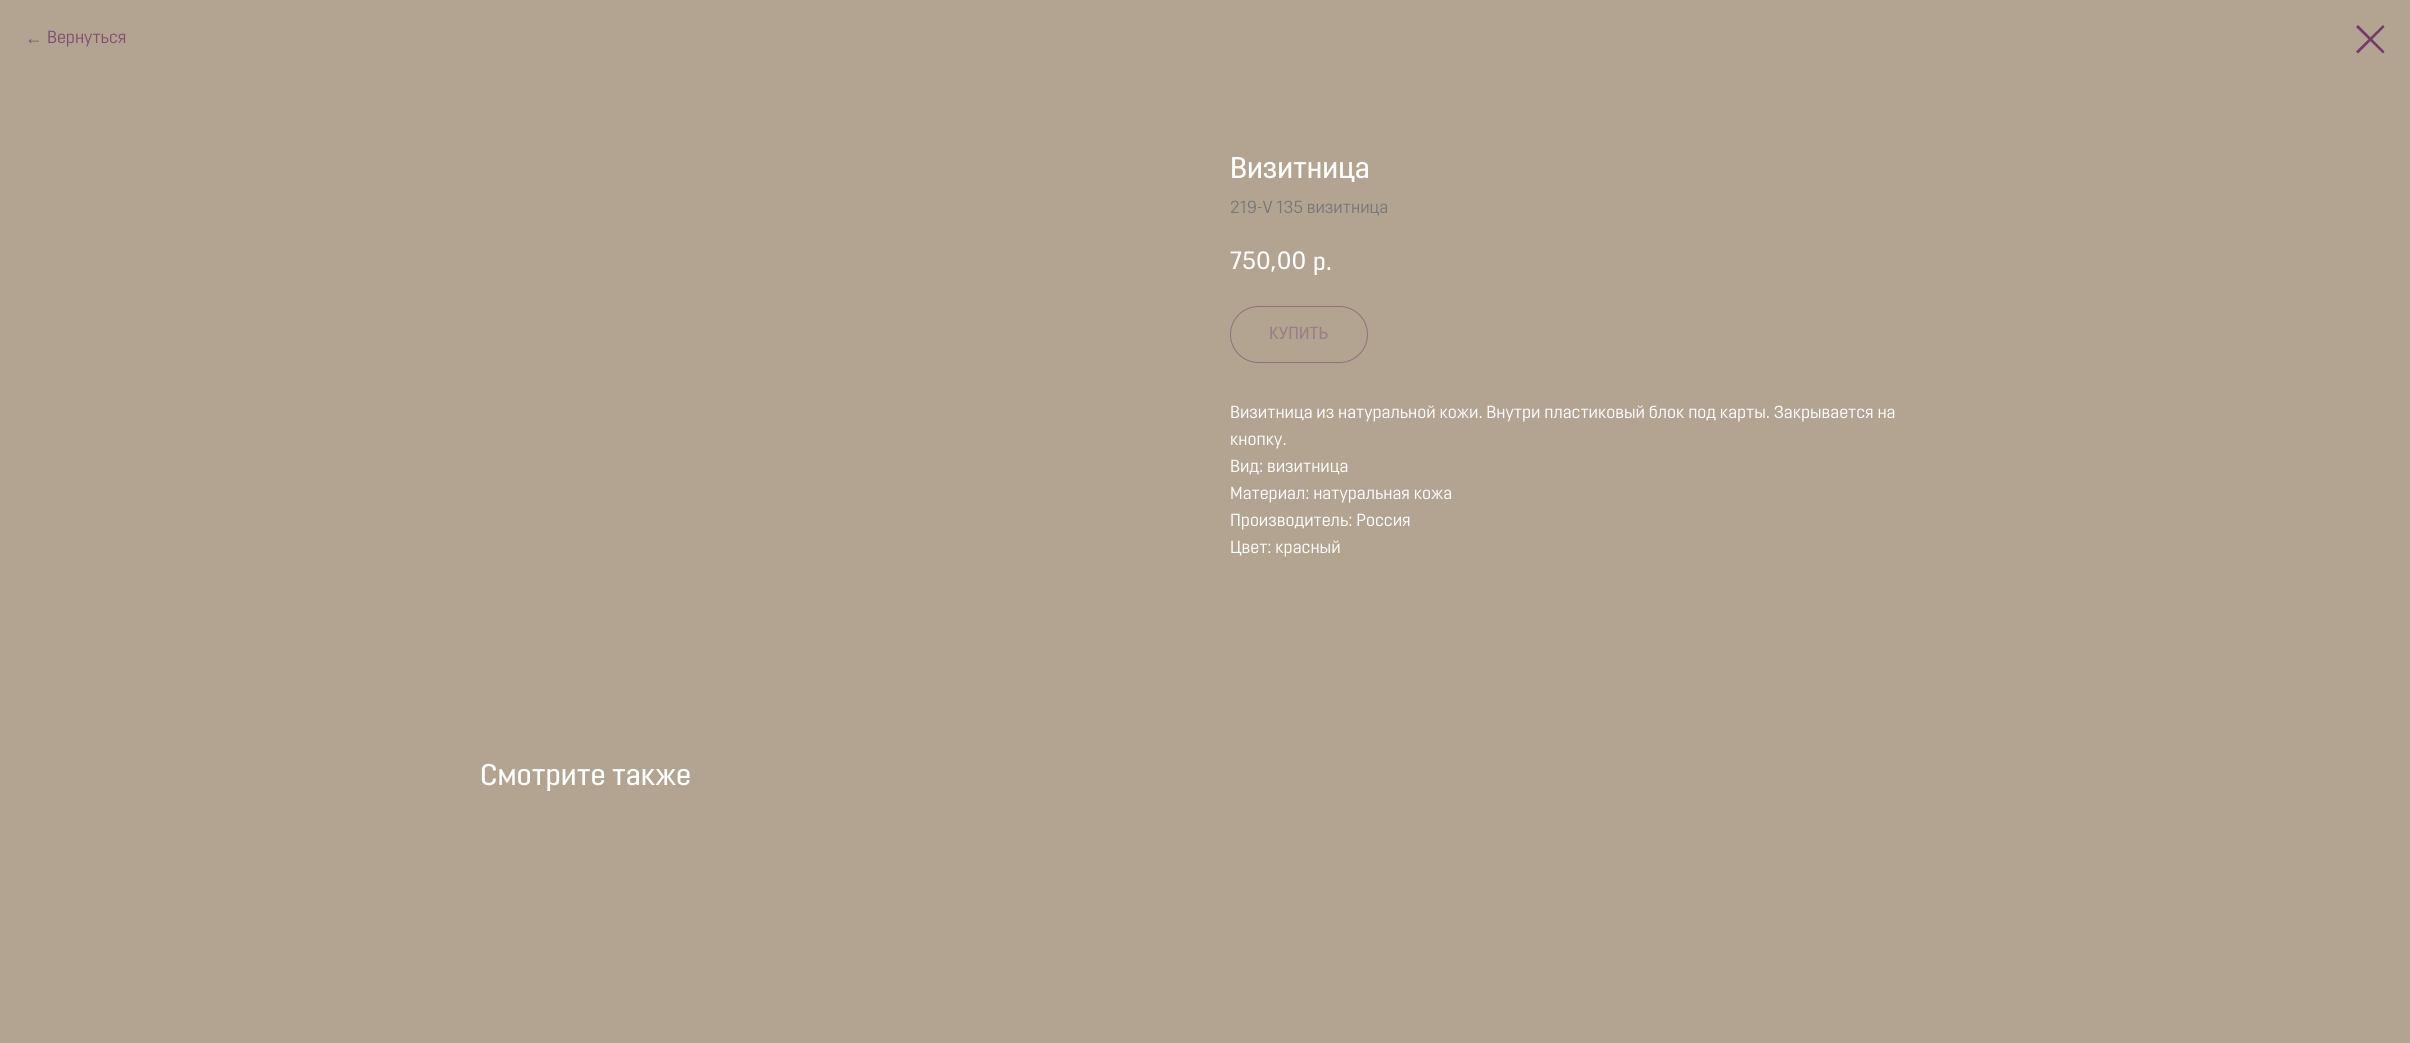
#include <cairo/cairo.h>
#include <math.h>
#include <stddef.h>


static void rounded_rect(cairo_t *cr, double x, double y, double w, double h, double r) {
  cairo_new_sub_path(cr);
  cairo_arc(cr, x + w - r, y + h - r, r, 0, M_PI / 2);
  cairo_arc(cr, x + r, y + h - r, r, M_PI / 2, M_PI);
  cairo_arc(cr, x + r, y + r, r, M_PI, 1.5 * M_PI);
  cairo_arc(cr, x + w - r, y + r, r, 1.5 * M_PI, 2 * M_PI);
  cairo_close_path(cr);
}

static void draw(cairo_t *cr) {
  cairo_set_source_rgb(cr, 179 / 255.0, 164 / 255.0, 145 / 255.0);
  cairo_paint(cr);
  cairo_set_source_rgb(cr, 114 / 255.0, 57 / 255.0, 107 / 255.0);
  cairo_set_fill_rule(cr, CAIRO_FILL_RULE_EVEN_ODD);
  cairo_new_path(cr);
  cairo_move_to(cr, 2356, 27);
  cairo_line_to(cr, 2358, 25);
  cairo_line_to(cr, 2384.5, 51.5);
  cairo_line_to(cr, 2383, 53.5);
  cairo_close_path(cr);
  cairo_fill(cr);
  cairo_new_path(cr);
  cairo_move_to(cr, 2383, 25);
  cairo_line_to(cr, 2384.5, 27);
  cairo_line_to(cr, 2358, 53.5);
  cairo_line_to(cr, 2356, 51.5);
  cairo_close_path(cr);
  cairo_fill(cr);
  rounded_rect(cr, 1230.5, 306.5, 137, 56, 28);
  cairo_set_source_rgb(cr, 147 / 255.0, 111 / 255.0, 126 / 255.0);
  cairo_set_line_width(cr, 1);
  cairo_stroke(cr);
  cairo_select_font_face(cr, "Liberation Sans", CAIRO_FONT_SLANT_NORMAL, CAIRO_FONT_WEIGHT_NORMAL);
  cairo_set_font_size(cr, 17.5);
  cairo_set_source_rgb(cr, 127 / 255.0, 78 / 255.0, 115 / 255.0);
  cairo_move_to(cr, 25, 44);
  cairo_show_text(cr, "←");
  cairo_select_font_face(cr, "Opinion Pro", CAIRO_FONT_SLANT_NORMAL, CAIRO_FONT_WEIGHT_NORMAL);
  cairo_move_to(cr, 47, 43);
  cairo_show_text(cr, "Вернуться");
  cairo_select_font_face(cr, "Opinion Pro Medium", CAIRO_FONT_SLANT_NORMAL, CAIRO_FONT_WEIGHT_NORMAL);
  cairo_set_font_size(cr, 30);
  cairo_set_source_rgb(cr, 1, 1, 1);
  cairo_move_to(cr, 1230, 178);
  cairo_show_text(cr, "Визитница");
  cairo_select_font_face(cr, "Opinion Pro", CAIRO_FONT_SLANT_NORMAL, CAIRO_FONT_WEIGHT_NORMAL);
  cairo_set_font_size(cr, 17.5);
  cairo_set_source_rgb(cr, 119 / 255.0, 119 / 255.0, 119 / 255.0);
  cairo_move_to(cr, 1230, 213);
  cairo_show_text(cr, "219-V 135 визитница");
  cairo_select_font_face(cr, "Opinion Pro Medium", CAIRO_FONT_SLANT_NORMAL, CAIRO_FONT_WEIGHT_NORMAL);
  cairo_set_font_size(cr, 25);
  cairo_set_source_rgb(cr, 1, 1, 1);
  cairo_move_to(cr, 1230, 269);
  cairo_show_text(cr, "750,00");
  cairo_move_to(cr, 1313, 270);
  cairo_show_text(cr, "р.");
  cairo_set_font_size(cr, 17.5);
  cairo_set_source_rgb(cr, 156 / 255.0, 127 / 255.0, 132 / 255.0);
  cairo_move_to(cr, 1269, 339);
  cairo_show_text(cr, "КУПИТЬ");
  cairo_select_font_face(cr, "Opinion Pro", CAIRO_FONT_SLANT_NORMAL, CAIRO_FONT_WEIGHT_NORMAL);
  cairo_set_source_rgb(cr, 1, 1, 1);
  cairo_move_to(cr, 1230, 418);
  cairo_show_text(cr, "Визитница из натуральной кожи. Внутри пластиковый блок под карты. Закрывается на");
  cairo_move_to(cr, 1230, 445);
  cairo_show_text(cr, "кнопку.");
  cairo_move_to(cr, 1230, 472);
  cairo_show_text(cr, "Вид: визитница");
  cairo_move_to(cr, 1230, 499);
  cairo_show_text(cr, "Материал: натуральная кожа");
  cairo_move_to(cr, 1230, 526);
  cairo_show_text(cr, "Производитель: Россия");
  cairo_move_to(cr, 1230, 553);
  cairo_show_text(cr, "Цвет: красный");
  cairo_select_font_face(cr, "Opinion Pro Medium", CAIRO_FONT_SLANT_NORMAL, CAIRO_FONT_WEIGHT_NORMAL);
  cairo_set_font_size(cr, 30);
  cairo_move_to(cr, 480, 785);
  cairo_show_text(cr, "Смотрите также");
}

int main(void) {
  cairo_surface_t *surface = cairo_image_surface_create(CAIRO_FORMAT_RGB24, 2410, 1043);
  cairo_t *cr = cairo_create(surface);
  cairo_font_options_t *options = cairo_font_options_create();
  cairo_font_options_set_hint_metrics(options, CAIRO_HINT_METRICS_OFF);
  cairo_font_options_set_hint_style(options, CAIRO_HINT_STYLE_NONE);
  cairo_set_font_options(cr, options);
  cairo_set_miter_limit(cr, 4);
  draw(cr);
  cairo_surface_write_to_png(surface, "out.png");
  cairo_font_options_destroy(options);
  cairo_destroy(cr);
  cairo_surface_destroy(surface);
  return 0;
}
